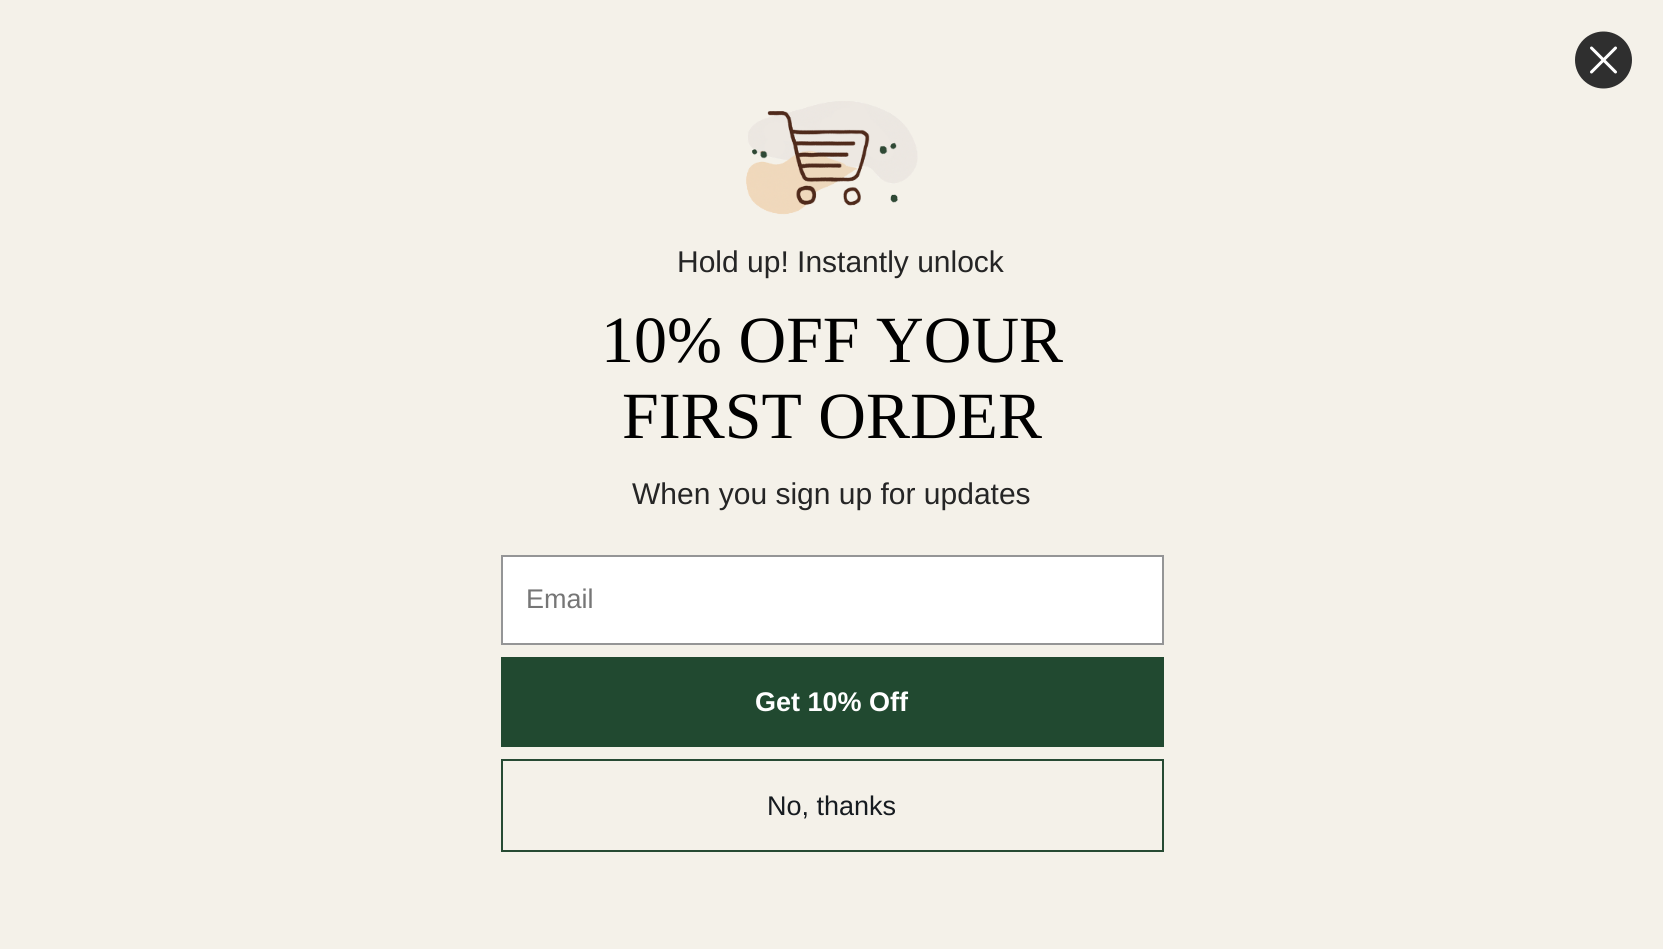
#include <cairo/cairo.h>
#include <math.h>
#include <stddef.h>


static void draw_image(cairo_t *cr, const char *path, double x, double y, double w, double h) {
  cairo_surface_t *image = cairo_image_surface_create_from_png(path);
  cairo_save(cr);
  cairo_set_source_surface(cr, image, x, y);
  cairo_rectangle(cr, x, y, w, h);
  cairo_fill(cr);
  cairo_restore(cr);
  cairo_surface_destroy(image);
}

static void draw(cairo_t *cr) {
  cairo_set_source_rgb(cr, 244 / 255.0, 241 / 255.0, 233 / 255.0);
  cairo_paint(cr);
  cairo_set_source_rgb(cr, 47 / 255.0, 47 / 255.0, 47 / 255.0);
  cairo_arc(cr, 1603.5, 60, 28.5, 0, 2 * M_PI);
  cairo_fill(cr);
  cairo_new_path(cr);
  cairo_move_to(cr, 1591.5, 48);
  cairo_line_to(cr, 1615.5, 72);
  cairo_move_to(cr, 1591.5, 72);
  cairo_line_to(cr, 1615.5, 48);
  cairo_close_path(cr);
  cairo_set_source_rgb(cr, 1, 1, 1);
  cairo_set_line_width(cr, 3);
  cairo_set_line_cap(cr, CAIRO_LINE_CAP_ROUND);
  cairo_set_line_join(cr, CAIRO_LINE_JOIN_ROUND);
  cairo_stroke(cr);
  draw_image(cr, "images/1.png", 746, 101, 172, 114);
  cairo_rectangle(cr, 502, 556, 661, 88);
  cairo_fill_preserve(cr);
  cairo_set_source_rgb(cr, 148 / 255.0, 149 / 255.0, 150 / 255.0);
  cairo_set_line_width(cr, 2);
  cairo_set_line_cap(cr, CAIRO_LINE_CAP_BUTT);
  cairo_set_line_join(cr, CAIRO_LINE_JOIN_MITER);
  cairo_stroke(cr);
  cairo_set_source_rgb(cr, 33 / 255.0, 73 / 255.0, 48 / 255.0);
  cairo_rectangle(cr, 501, 657, 663, 90);
  cairo_fill(cr);
  cairo_rectangle(cr, 502, 760, 661, 91);
  cairo_set_source_rgb(cr, 38 / 255.0, 74 / 255.0, 51 / 255.0);
  cairo_stroke(cr);
  cairo_select_font_face(cr, "Liberation Sans", CAIRO_FONT_SLANT_NORMAL, CAIRO_FONT_WEIGHT_NORMAL);
  cairo_set_font_size(cr, 30);
  cairo_set_source_rgb(cr, 37 / 255.0, 37 / 255.0, 37 / 255.0);
  cairo_move_to(cr, 677, 272);
  cairo_show_text(cr, "Hold up! Instantly unlock");
  cairo_select_font_face(cr, "Liberation Serif", CAIRO_FONT_SLANT_NORMAL, CAIRO_FONT_WEIGHT_NORMAL);
  cairo_set_font_size(cr, 66);
  cairo_set_source_rgb(cr, 0, 0, 0);
  cairo_move_to(cr, 601, 362);
  cairo_show_text(cr, "10% OFF YOUR");
  cairo_move_to(cr, 622, 438);
  cairo_show_text(cr, "FIRST ORDER");
  cairo_select_font_face(cr, "Liberation Sans", CAIRO_FONT_SLANT_NORMAL, CAIRO_FONT_WEIGHT_NORMAL);
  cairo_set_font_size(cr, 30);
  cairo_set_source_rgb(cr, 37 / 255.0, 37 / 255.0, 37 / 255.0);
  cairo_move_to(cr, 632, 504);
  cairo_show_text(cr, "When you sign up for updates");
  cairo_set_font_size(cr, 27);
  cairo_set_source_rgb(cr, 118 / 255.0, 118 / 255.0, 118 / 255.0);
  cairo_move_to(cr, 526, 608);
  cairo_show_text(cr, "Email");
  cairo_select_font_face(cr, "Liberation Sans", CAIRO_FONT_SLANT_NORMAL, CAIRO_FONT_WEIGHT_BOLD);
  cairo_set_source_rgb(cr, 1, 1, 1);
  cairo_move_to(cr, 755, 711);
  cairo_show_text(cr, "Get 10% Off");
  cairo_select_font_face(cr, "Liberation Sans", CAIRO_FONT_SLANT_NORMAL, CAIRO_FONT_WEIGHT_NORMAL);
  cairo_set_source_rgb(cr, 22 / 255.0, 27 / 255.0, 32 / 255.0);
  cairo_move_to(cr, 767, 815);
  cairo_show_text(cr, "No, thanks");
}

int main(void) {
  cairo_surface_t *surface = cairo_image_surface_create(CAIRO_FORMAT_RGB24, 1663, 949);
  cairo_t *cr = cairo_create(surface);
  cairo_font_options_t *options = cairo_font_options_create();
  cairo_font_options_set_hint_metrics(options, CAIRO_HINT_METRICS_OFF);
  cairo_font_options_set_hint_style(options, CAIRO_HINT_STYLE_NONE);
  cairo_set_font_options(cr, options);
  cairo_set_miter_limit(cr, 4);
  draw(cr);
  cairo_surface_write_to_png(surface, "out.png");
  cairo_font_options_destroy(options);
  cairo_destroy(cr);
  cairo_surface_destroy(surface);
  return 0;
}
